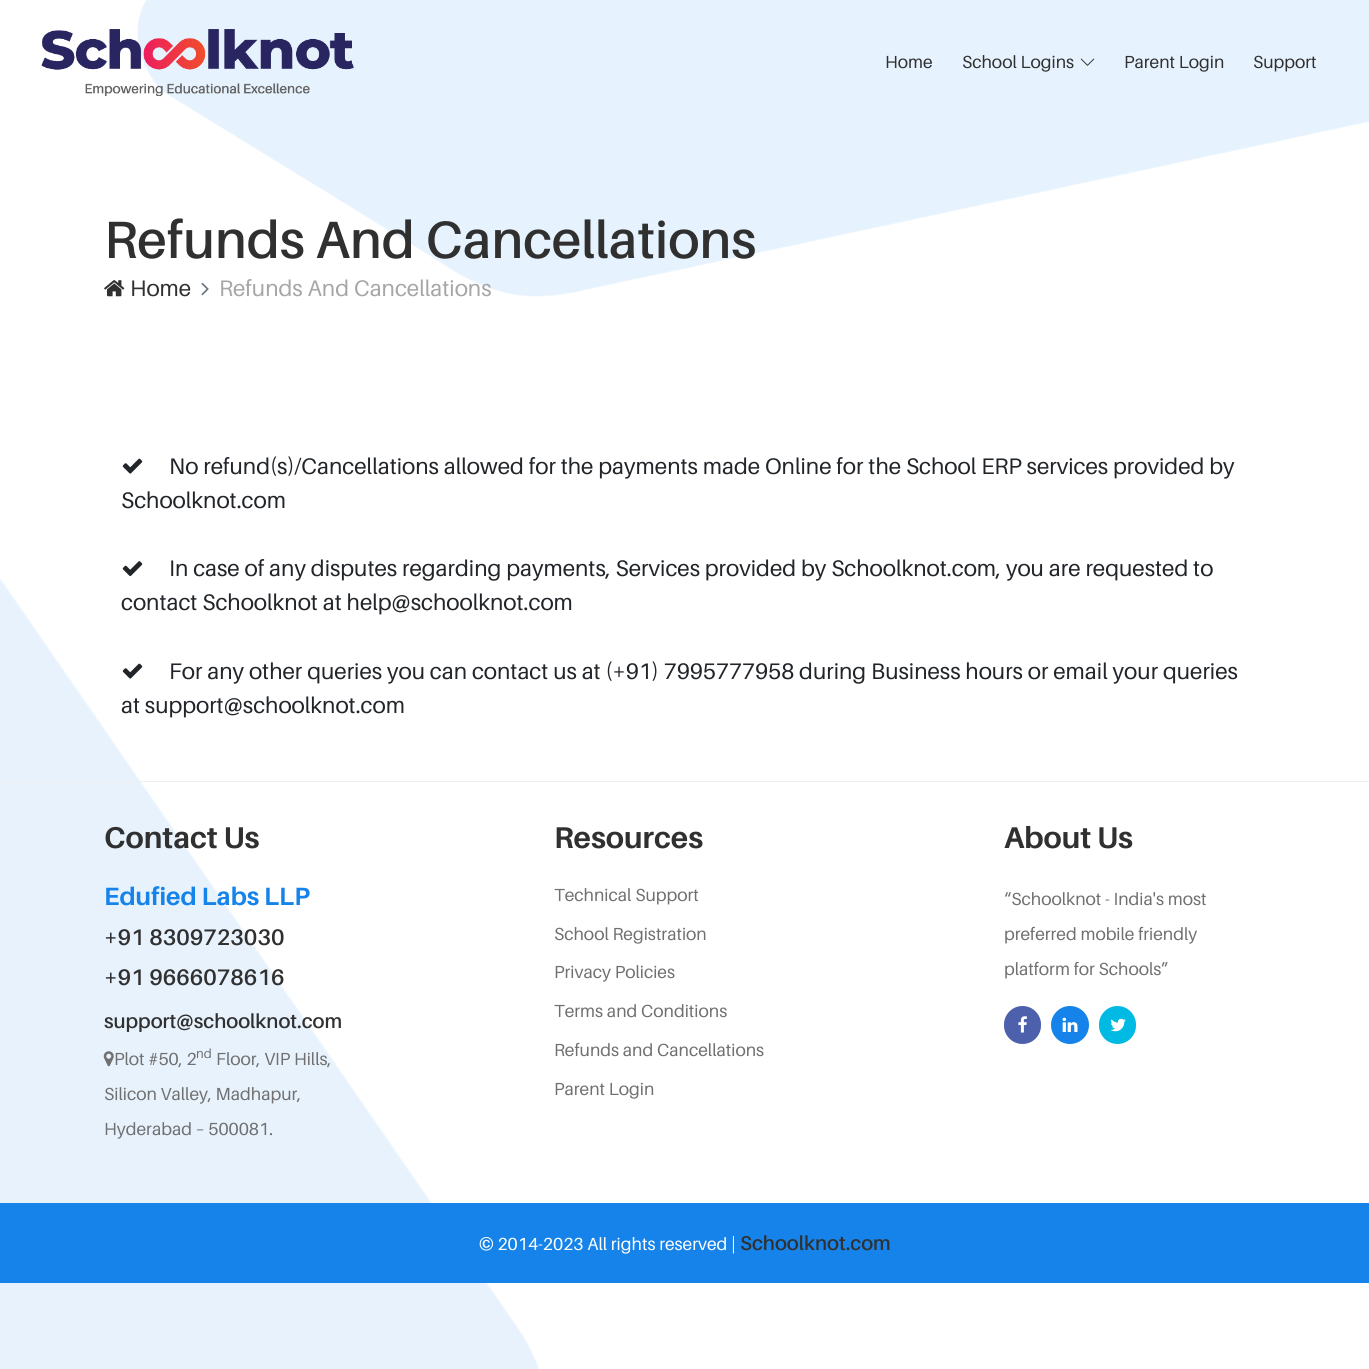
#include <cairo/cairo.h>
#include <math.h>
#include <stddef.h>


static void rounded_rect(cairo_t *cr, double x, double y, double w, double h, double r) {
  cairo_new_sub_path(cr);
  cairo_arc(cr, x + w - r, y + h - r, r, 0, M_PI / 2);
  cairo_arc(cr, x + r, y + h - r, r, M_PI / 2, M_PI);
  cairo_arc(cr, x + r, y + r, r, M_PI, 1.5 * M_PI);
  cairo_arc(cr, x + w - r, y + r, r, 1.5 * M_PI, 2 * M_PI);
  cairo_close_path(cr);
}

static void draw_image(cairo_t *cr, const char *path, double x, double y, double w, double h) {
  cairo_surface_t *image = cairo_image_surface_create_from_png(path);
  cairo_save(cr);
  cairo_set_source_surface(cr, image, x, y);
  cairo_rectangle(cr, x, y, w, h);
  cairo_fill(cr);
  cairo_restore(cr);
  cairo_surface_destroy(image);
}

static void draw(cairo_t *cr) {
  cairo_set_source_rgb(cr, 1, 1, 1);
  cairo_paint(cr);
  draw_image(cr, "images/3.png", 137, 0, 1232, 297);
  draw_image(cr, "images/1.png", 41, 29, 313, 67);
  draw_image(cr, "images/2.png", 1080, 58, 15, 8);
  draw_image(cr, "images/4.png", 104, 280, 21, 17);
  draw_image(cr, "images/5.png", 201, 282, 8, 14);
  draw_image(cr, "images/6.png", 122, 458, 21, 16);
  draw_image(cr, "images/7.png", 122, 561, 21, 16);
  draw_image(cr, "images/8.png", 0, 579, 539, 790);
  draw_image(cr, "images/6.png", 122, 663, 21, 16);
  cairo_set_source_rgb(cr, 238 / 255.0, 238 / 255.0, 238 / 255.0);
  cairo_rectangle(cr, 0, 781, 1369, 1);
  cairo_fill(cr);
  draw_image(cr, "images/9.png", 103, 1051, 11, 16);
  cairo_set_source_rgb(cr, 76 / 255.0, 96 / 255.0, 172 / 255.0);
  rounded_rect(cr, 1004, 1006, 37, 38, 18.5);
  cairo_fill(cr);
  draw_image(cr, "images/10.png", 1018, 1016, 9, 17);
  cairo_set_source_rgb(cr, 21 / 255.0, 131 / 255.0, 233 / 255.0);
  cairo_arc(cr, 1070, 1025, 19, 0, 2 * M_PI);
  cairo_fill(cr);
  draw_image(cr, "images/11.png", 1062, 1017, 16, 15);
  cairo_set_source_rgb(cr, 0, 186 / 255.0, 227 / 255.0);
  rounded_rect(cr, 1099, 1006, 37, 38, 18.5);
  cairo_fill(cr);
  draw_image(cr, "images/12.png", 1110, 1018, 16, 14);
  cairo_set_source_rgb(cr, 21 / 255.0, 131 / 255.0, 233 / 255.0);
  cairo_rectangle(cr, 0, 1203, 1369, 80);
  cairo_fill(cr);
  cairo_select_font_face(cr, "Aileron", CAIRO_FONT_SLANT_NORMAL, CAIRO_FONT_WEIGHT_NORMAL);
  cairo_set_font_size(cr, 17.5);
  cairo_set_source_rgb(cr, 48 / 255.0, 48 / 255.0, 48 / 255.0);
  cairo_move_to(cr, 885, 68);
  cairo_show_text(cr, "Home");
  cairo_move_to(cr, 962, 68);
  cairo_show_text(cr, "School Logins");
  cairo_move_to(cr, 1124, 68);
  cairo_show_text(cr, "Parent Login");
  cairo_move_to(cr, 1253, 68);
  cairo_show_text(cr, "Support");
  cairo_select_font_face(cr, "Aileron SemiBold", CAIRO_FONT_SLANT_NORMAL, CAIRO_FONT_WEIGHT_NORMAL);
  cairo_set_font_size(cr, 52.5);
  cairo_move_to(cr, 104, 258);
  cairo_show_text(cr, "Refunds And Cancellations");
  cairo_select_font_face(cr, "Aileron", CAIRO_FONT_SLANT_NORMAL, CAIRO_FONT_WEIGHT_NORMAL);
  cairo_set_font_size(cr, 22.5);
  cairo_move_to(cr, 130, 296);
  cairo_show_text(cr, "Home");
  cairo_set_source_rgb(cr, 166 / 255.0, 166 / 255.0, 166 / 255.0);
  cairo_move_to(cr, 219, 296);
  cairo_show_text(cr, "Refunds And Cancellations");
  cairo_set_source_rgb(cr, 33 / 255.0, 37 / 255.0, 41 / 255.0);
  cairo_move_to(cr, 169, 474);
  cairo_show_text(cr, "No refund(s)/Cancellations allowed for the payments made Online for the School ERP services provided by");
  cairo_move_to(cr, 121, 508);
  cairo_show_text(cr, "Schoolknot.com");
  cairo_move_to(cr, 169, 576);
  cairo_show_text(cr, "In case of any disputes regarding payments, Services provided by Schoolknot.com, you are requested to");
  cairo_move_to(cr, 121, 610);
  cairo_show_text(cr, "contact Schoolknot at help@schoolknot.com");
  cairo_move_to(cr, 169, 679);
  cairo_show_text(cr, "For any other queries you can contact us at (+91) 7995777958 during Business hours or email your queries");
  cairo_move_to(cr, 121, 713);
  cairo_show_text(cr, "at support@schoolknot.com");
  cairo_select_font_face(cr, "Aileron", CAIRO_FONT_SLANT_NORMAL, CAIRO_FONT_WEIGHT_BOLD);
  cairo_set_font_size(cr, 30);
  cairo_set_source_rgb(cr, 48 / 255.0, 48 / 255.0, 48 / 255.0);
  cairo_move_to(cr, 104, 848);
  cairo_show_text(cr, "Contact Us");
  cairo_set_font_size(cr, 25);
  cairo_set_source_rgb(cr, 21 / 255.0, 131 / 255.0, 233 / 255.0);
  cairo_move_to(cr, 104, 905);
  cairo_show_text(cr, "Edufied Labs LLP");
  cairo_select_font_face(cr, "Aileron SemiBold", CAIRO_FONT_SLANT_NORMAL, CAIRO_FONT_WEIGHT_NORMAL);
  cairo_set_font_size(cr, 22.5);
  cairo_set_source_rgb(cr, 48 / 255.0, 48 / 255.0, 48 / 255.0);
  cairo_move_to(cr, 104, 945);
  cairo_show_text(cr, "+91 8309723030");
  cairo_move_to(cr, 104, 985);
  cairo_show_text(cr, "+91 9666078616");
  cairo_set_font_size(cr, 20);
  cairo_move_to(cr, 104, 1028);
  cairo_show_text(cr, "support@schoolknot.com");
  cairo_select_font_face(cr, "Aileron", CAIRO_FONT_SLANT_NORMAL, CAIRO_FONT_WEIGHT_NORMAL);
  cairo_set_font_size(cr, 17.5);
  cairo_set_source_rgb(cr, 112 / 255.0, 112 / 255.0, 112 / 255.0);
  cairo_move_to(cr, 114, 1065);
  cairo_show_text(cr, "Plot #50, 2");
  cairo_set_font_size(cr, 13);
  cairo_move_to(cr, 196, 1058);
  cairo_show_text(cr, "nd");
  cairo_set_font_size(cr, 17.5);
  cairo_move_to(cr, 216, 1065);
  cairo_show_text(cr, "Floor, VIP Hills,");
  cairo_move_to(cr, 104, 1100);
  cairo_show_text(cr, "Silicon Valley, Madhapur,");
  cairo_move_to(cr, 104, 1135);
  cairo_show_text(cr, "Hyderabad – 500081.");
  cairo_select_font_face(cr, "Aileron", CAIRO_FONT_SLANT_NORMAL, CAIRO_FONT_WEIGHT_BOLD);
  cairo_set_font_size(cr, 30);
  cairo_set_source_rgb(cr, 48 / 255.0, 48 / 255.0, 48 / 255.0);
  cairo_move_to(cr, 554, 848);
  cairo_show_text(cr, "Resources");
  cairo_select_font_face(cr, "Aileron", CAIRO_FONT_SLANT_NORMAL, CAIRO_FONT_WEIGHT_NORMAL);
  cairo_set_font_size(cr, 17.5);
  cairo_set_source_rgb(cr, 112 / 255.0, 112 / 255.0, 112 / 255.0);
  cairo_move_to(cr, 554, 901);
  cairo_show_text(cr, "Technical Support");
  cairo_move_to(cr, 554, 940);
  cairo_show_text(cr, "School Registration");
  cairo_move_to(cr, 554, 978);
  cairo_show_text(cr, "Privacy Policies");
  cairo_move_to(cr, 554, 1017);
  cairo_show_text(cr, "Terms and Conditions");
  cairo_move_to(cr, 554, 1056);
  cairo_show_text(cr, "Refunds and Cancellations");
  cairo_move_to(cr, 554, 1095);
  cairo_show_text(cr, "Parent Login");
  cairo_select_font_face(cr, "Aileron", CAIRO_FONT_SLANT_NORMAL, CAIRO_FONT_WEIGHT_BOLD);
  cairo_set_font_size(cr, 30);
  cairo_set_source_rgb(cr, 48 / 255.0, 48 / 255.0, 48 / 255.0);
  cairo_move_to(cr, 1004, 848);
  cairo_show_text(cr, "About Us");
  cairo_select_font_face(cr, "Aileron", CAIRO_FONT_SLANT_NORMAL, CAIRO_FONT_WEIGHT_NORMAL);
  cairo_set_font_size(cr, 17.5);
  cairo_set_source_rgb(cr, 112 / 255.0, 112 / 255.0, 112 / 255.0);
  cairo_move_to(cr, 1004, 905);
  cairo_show_text(cr, "“Schoolknot - India's most");
  cairo_move_to(cr, 1004, 940);
  cairo_show_text(cr, "preferred mobile friendly");
  cairo_move_to(cr, 1004, 975);
  cairo_show_text(cr, "platform for Schools”");
  cairo_set_source_rgb(cr, 1, 1, 1);
  cairo_move_to(cr, 479, 1250);
  cairo_show_text(cr, "© 2014-2023 All rights reserved |");
  cairo_select_font_face(cr, "Aileron SemiBold", CAIRO_FONT_SLANT_NORMAL, CAIRO_FONT_WEIGHT_NORMAL);
  cairo_set_font_size(cr, 20);
  cairo_set_source_rgb(cr, 48 / 255.0, 48 / 255.0, 48 / 255.0);
  cairo_move_to(cr, 740, 1250);
  cairo_show_text(cr, "Schoolknot.com");
}

int main(void) {
  cairo_surface_t *surface = cairo_image_surface_create(CAIRO_FORMAT_RGB24, 1369, 1369);
  cairo_t *cr = cairo_create(surface);
  cairo_font_options_t *options = cairo_font_options_create();
  cairo_font_options_set_hint_metrics(options, CAIRO_HINT_METRICS_OFF);
  cairo_font_options_set_hint_style(options, CAIRO_HINT_STYLE_NONE);
  cairo_set_font_options(cr, options);
  cairo_set_miter_limit(cr, 4);
  draw(cr);
  cairo_surface_write_to_png(surface, "out.png");
  cairo_font_options_destroy(options);
  cairo_destroy(cr);
  cairo_surface_destroy(surface);
  return 0;
}
